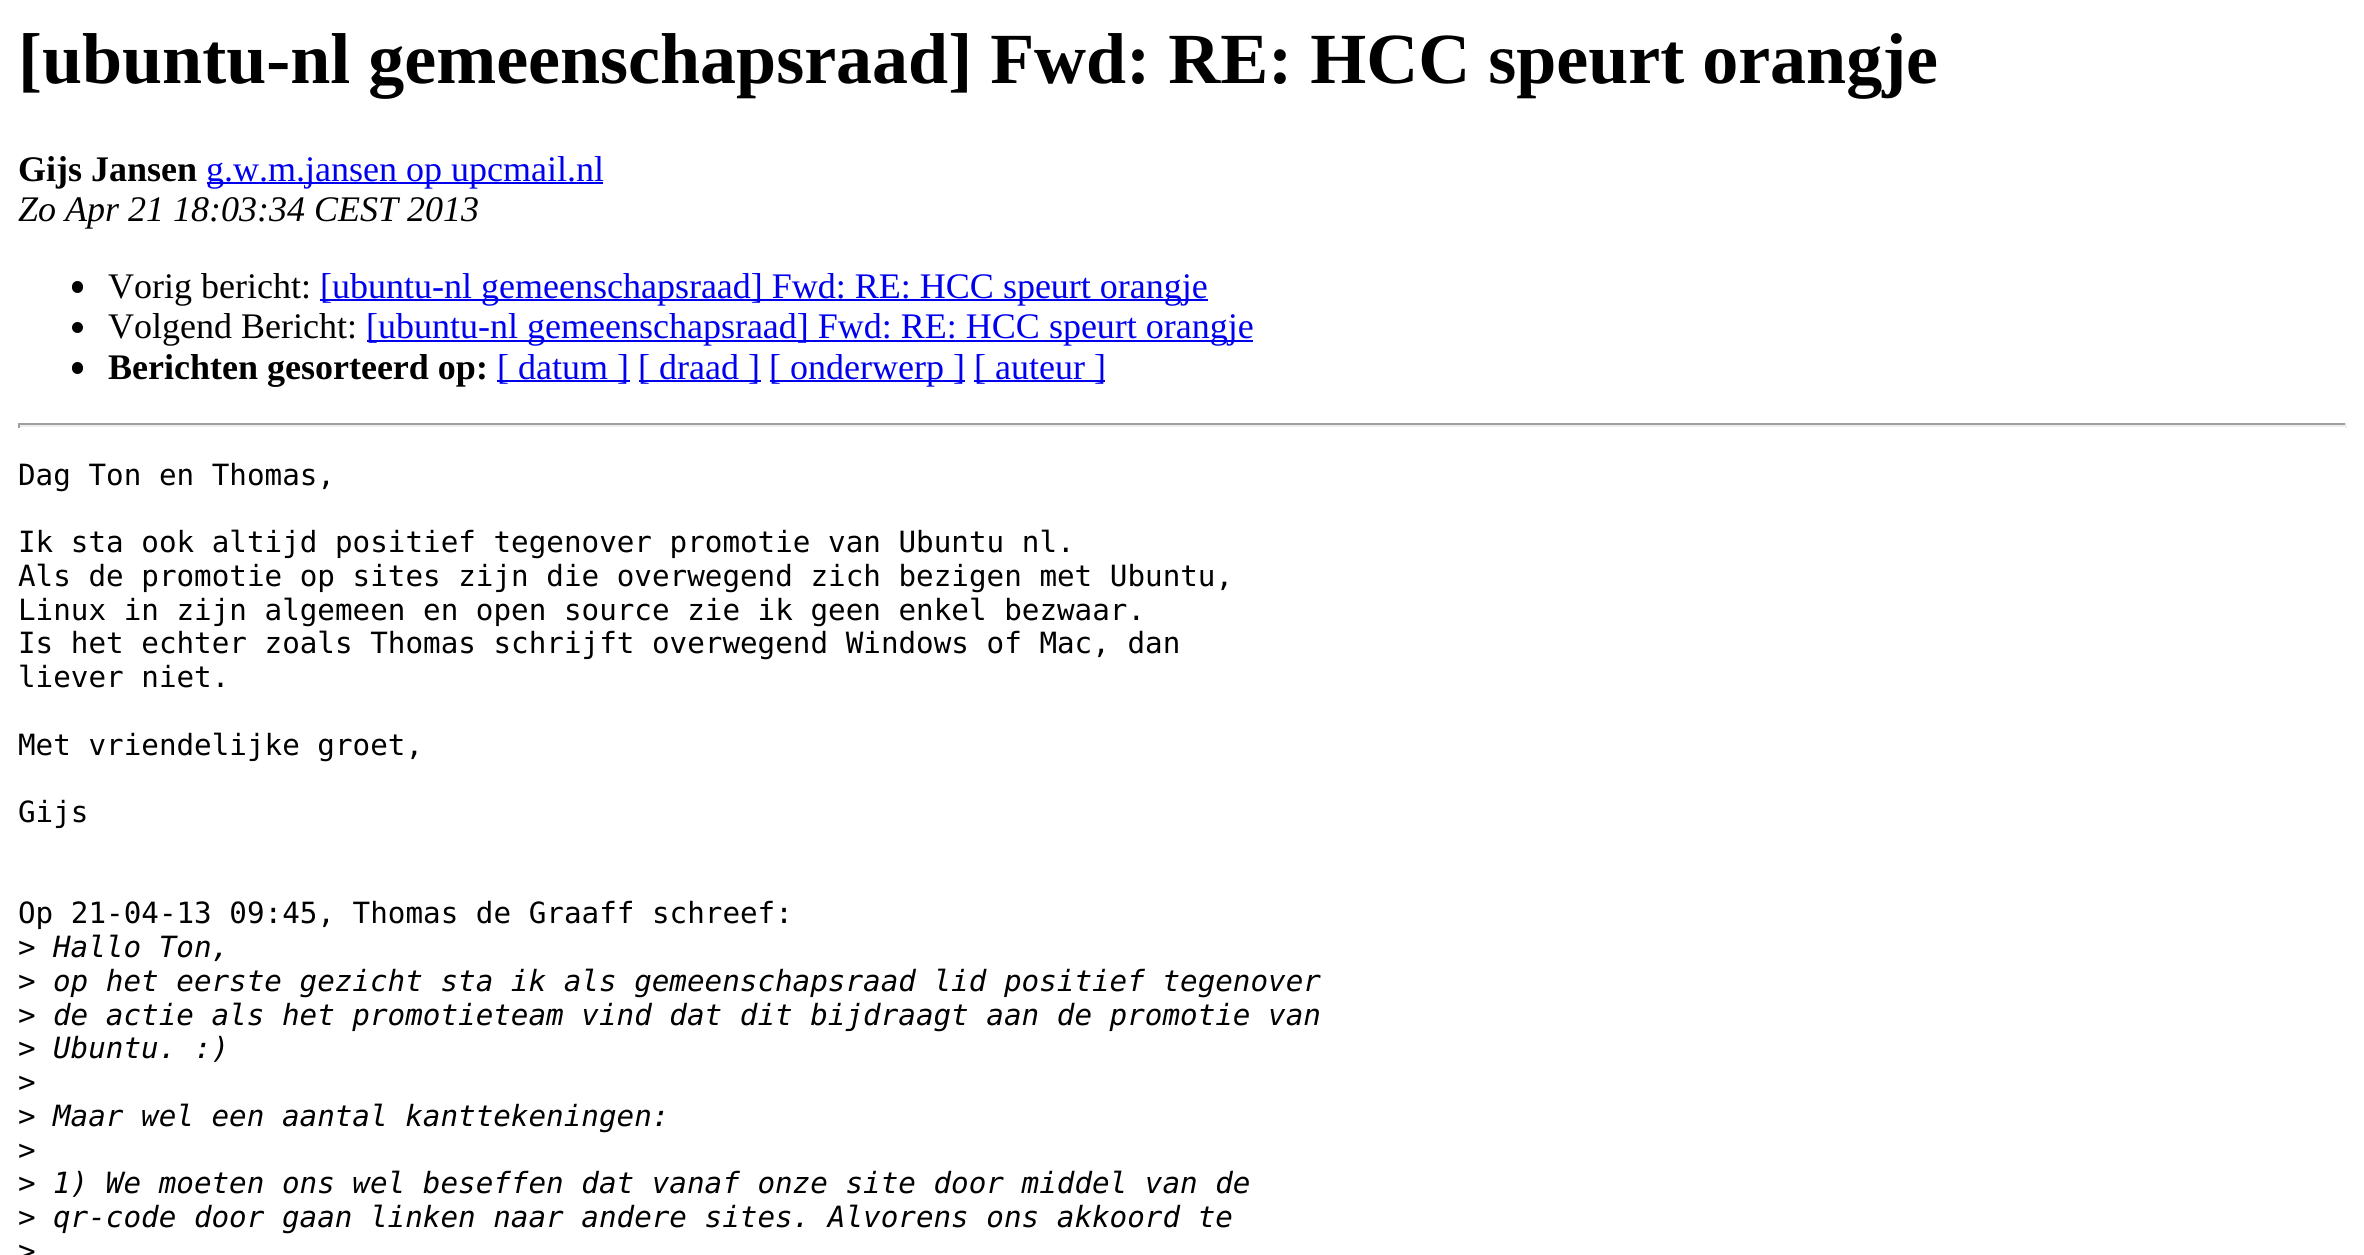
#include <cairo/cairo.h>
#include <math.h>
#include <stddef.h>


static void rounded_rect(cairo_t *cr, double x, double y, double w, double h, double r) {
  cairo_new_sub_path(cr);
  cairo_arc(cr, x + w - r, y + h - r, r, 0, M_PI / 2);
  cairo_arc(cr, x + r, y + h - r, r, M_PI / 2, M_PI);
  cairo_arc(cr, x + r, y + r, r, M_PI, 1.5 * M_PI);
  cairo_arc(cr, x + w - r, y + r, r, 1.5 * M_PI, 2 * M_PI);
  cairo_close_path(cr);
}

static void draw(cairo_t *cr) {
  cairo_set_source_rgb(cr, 1, 1, 1);
  cairo_paint(cr);
  cairo_set_source_rgb(cr, 0, 0, 238 / 255.0);
  cairo_rectangle(cr, 207, 182, 396, 2);
  cairo_fill(cr);
  cairo_set_source_rgb(cr, 0, 0, 0);
  rounded_rect(cr, 72, 281, 11, 12, 5.5);
  cairo_fill(cr);
  cairo_set_source_rgb(cr, 0, 0, 238 / 255.0);
  cairo_rectangle(cr, 320, 299, 888, 2);
  cairo_fill(cr);
  cairo_set_source_rgb(cr, 0, 0, 0);
  cairo_arc(cr, 77.5, 327.5, 5.5, 0, 2 * M_PI);
  cairo_fill(cr);
  cairo_set_source_rgb(cr, 0, 0, 238 / 255.0);
  cairo_rectangle(cr, 367, 340, 886, 2);
  cairo_fill(cr);
  cairo_set_source_rgb(cr, 0, 0, 0);
  rounded_rect(cr, 72, 362, 11, 12, 5.5);
  cairo_fill(cr);
  cairo_set_source_rgb(cr, 0, 0, 238 / 255.0);
  cairo_rectangle(cr, 497, 380, 133, 2);
  cairo_fill(cr);
  cairo_rectangle(cr, 639, 380, 122, 2);
  cairo_fill(cr);
  cairo_rectangle(cr, 770, 380, 195, 2);
  cairo_fill(cr);
  cairo_rectangle(cr, 974, 380, 131, 2);
  cairo_fill(cr);
  cairo_set_source_rgb(cr, 159 / 255.0, 159 / 255.0, 159 / 255.0);
  cairo_rectangle(cr, 18, 423, 2329, 2);
  cairo_fill(cr);
  cairo_set_source_rgb(cr, 238 / 255.0, 238 / 255.0, 238 / 255.0);
  cairo_rectangle(cr, 2345, 423, 2, 5);
  cairo_fill(cr);
  cairo_rectangle(cr, 18, 425, 2329, 2);
  cairo_fill(cr);
  cairo_set_source_rgb(cr, 159 / 255.0, 159 / 255.0, 159 / 255.0);
  cairo_rectangle(cr, 18, 423, 2, 5);
  cairo_fill(cr);
  cairo_select_font_face(cr, "Liberation Serif", CAIRO_FONT_SLANT_NORMAL, CAIRO_FONT_WEIGHT_BOLD);
  cairo_set_font_size(cr, 72);
  cairo_set_source_rgb(cr, 0, 0, 0);
  cairo_move_to(cr, 18, 83);
  cairo_show_text(cr, "[ubuntu-nl gemeenschapsraad] Fwd: RE: HCC speurt orangje");
  cairo_set_font_size(cr, 36);
  cairo_move_to(cr, 18, 181);
  cairo_show_text(cr, "Gijs Jansen");
  cairo_select_font_face(cr, "Liberation Serif", CAIRO_FONT_SLANT_NORMAL, CAIRO_FONT_WEIGHT_NORMAL);
  cairo_set_source_rgb(cr, 0, 0, 238 / 255.0);
  cairo_move_to(cr, 206, 181);
  cairo_show_text(cr, "g.w.m.jansen op upcmail.nl");
  cairo_select_font_face(cr, "Liberation Serif", CAIRO_FONT_SLANT_ITALIC, CAIRO_FONT_WEIGHT_NORMAL);
  cairo_set_source_rgb(cr, 0, 0, 0);
  cairo_move_to(cr, 18, 221);
  cairo_show_text(cr, "Zo Apr 21 18:03:34 CEST 2013");
  cairo_select_font_face(cr, "Liberation Serif", CAIRO_FONT_SLANT_NORMAL, CAIRO_FONT_WEIGHT_NORMAL);
  cairo_move_to(cr, 108, 298);
  cairo_show_text(cr, "Vorig bericht:");
  cairo_set_source_rgb(cr, 0, 0, 238 / 255.0);
  cairo_move_to(cr, 320, 298);
  cairo_show_text(cr, "[ubuntu-nl gemeenschapsraad] Fwd: RE: HCC speurt orangje");
  cairo_set_source_rgb(cr, 0, 0, 0);
  cairo_move_to(cr, 108, 338);
  cairo_show_text(cr, "Volgend Bericht:");
  cairo_set_source_rgb(cr, 0, 0, 238 / 255.0);
  cairo_move_to(cr, 366, 338);
  cairo_show_text(cr, "[ubuntu-nl gemeenschapsraad] Fwd: RE: HCC speurt orangje");
  cairo_select_font_face(cr, "Liberation Serif", CAIRO_FONT_SLANT_NORMAL, CAIRO_FONT_WEIGHT_BOLD);
  cairo_set_source_rgb(cr, 0, 0, 0);
  cairo_move_to(cr, 108, 379);
  cairo_show_text(cr, "Berichten gesorteerd op:");
  cairo_select_font_face(cr, "Liberation Serif", CAIRO_FONT_SLANT_NORMAL, CAIRO_FONT_WEIGHT_NORMAL);
  cairo_set_source_rgb(cr, 0, 0, 238 / 255.0);
  cairo_move_to(cr, 497, 379);
  cairo_show_text(cr, "[ datum ]");
  cairo_move_to(cr, 638, 379);
  cairo_show_text(cr, "[ draad ]");
  cairo_move_to(cr, 769, 379);
  cairo_show_text(cr, "[ onderwerp ]");
  cairo_move_to(cr, 974, 379);
  cairo_show_text(cr, "[ auteur ]");
  cairo_select_font_face(cr, "DejaVu Sans Mono", CAIRO_FONT_SLANT_NORMAL, CAIRO_FONT_WEIGHT_NORMAL);
  cairo_set_font_size(cr, 29.25);
  cairo_set_source_rgb(cr, 0, 0, 0);
  cairo_move_to(cr, 18, 485);
  cairo_show_text(cr, "Dag Ton en Thomas,");
  cairo_move_to(cr, 18, 552);
  cairo_show_text(cr, "Ik sta ook altijd positief tegenover promotie van Ubuntu nl.");
  cairo_move_to(cr, 18, 586);
  cairo_show_text(cr, "Als de promotie op sites zijn die overwegend zich bezigen met Ubuntu,");
  cairo_move_to(cr, 18, 620);
  cairo_show_text(cr, "Linux in zijn algemeen en open source zie ik geen enkel bezwaar.");
  cairo_move_to(cr, 18, 653);
  cairo_show_text(cr, "Is het echter zoals Thomas schrijft overwegend Windows of Mac, dan");
  cairo_move_to(cr, 18, 687);
  cairo_show_text(cr, "liever niet.");
  cairo_move_to(cr, 18, 755);
  cairo_show_text(cr, "Met vriendelijke groet,");
  cairo_move_to(cr, 18, 822);
  cairo_show_text(cr, "Gijs");
  cairo_move_to(cr, 18, 923);
  cairo_show_text(cr, "Op 21-04-13 09:45, Thomas de Graaff schreef:");
  cairo_move_to(cr, 18, 957);
  cairo_show_text(cr, ">");
  cairo_select_font_face(cr, "DejaVu Sans Mono", CAIRO_FONT_SLANT_ITALIC, CAIRO_FONT_WEIGHT_NORMAL);
  cairo_move_to(cr, 53, 957);
  cairo_show_text(cr, "Hallo Ton,");
  cairo_select_font_face(cr, "DejaVu Sans Mono", CAIRO_FONT_SLANT_NORMAL, CAIRO_FONT_WEIGHT_NORMAL);
  cairo_move_to(cr, 18, 991);
  cairo_show_text(cr, ">");
  cairo_select_font_face(cr, "DejaVu Sans Mono", CAIRO_FONT_SLANT_ITALIC, CAIRO_FONT_WEIGHT_NORMAL);
  cairo_move_to(cr, 53, 991);
  cairo_show_text(cr, "op het eerste gezicht sta ik als gemeenschapsraad lid positief tegenover");
  cairo_select_font_face(cr, "DejaVu Sans Mono", CAIRO_FONT_SLANT_NORMAL, CAIRO_FONT_WEIGHT_NORMAL);
  cairo_move_to(cr, 18, 1025);
  cairo_show_text(cr, ">");
  cairo_select_font_face(cr, "DejaVu Sans Mono", CAIRO_FONT_SLANT_ITALIC, CAIRO_FONT_WEIGHT_NORMAL);
  cairo_move_to(cr, 53, 1025);
  cairo_show_text(cr, "de actie als het promotieteam vind dat dit bijdraagt aan de promotie van");
  cairo_select_font_face(cr, "DejaVu Sans Mono", CAIRO_FONT_SLANT_NORMAL, CAIRO_FONT_WEIGHT_NORMAL);
  cairo_move_to(cr, 18, 1058);
  cairo_show_text(cr, ">");
  cairo_select_font_face(cr, "DejaVu Sans Mono", CAIRO_FONT_SLANT_ITALIC, CAIRO_FONT_WEIGHT_NORMAL);
  cairo_move_to(cr, 53, 1058);
  cairo_show_text(cr, "Ubuntu. :)");
  cairo_select_font_face(cr, "DejaVu Sans Mono", CAIRO_FONT_SLANT_NORMAL, CAIRO_FONT_WEIGHT_NORMAL);
  cairo_move_to(cr, 18, 1092);
  cairo_show_text(cr, ">");
  cairo_move_to(cr, 18, 1126);
  cairo_show_text(cr, ">");
  cairo_select_font_face(cr, "DejaVu Sans Mono", CAIRO_FONT_SLANT_ITALIC, CAIRO_FONT_WEIGHT_NORMAL);
  cairo_move_to(cr, 53, 1126);
  cairo_show_text(cr, "Maar wel een aantal kanttekeningen:");
  cairo_select_font_face(cr, "DejaVu Sans Mono", CAIRO_FONT_SLANT_NORMAL, CAIRO_FONT_WEIGHT_NORMAL);
  cairo_move_to(cr, 18, 1160);
  cairo_show_text(cr, ">");
  cairo_move_to(cr, 18, 1193);
  cairo_show_text(cr, ">");
  cairo_select_font_face(cr, "DejaVu Sans Mono", CAIRO_FONT_SLANT_ITALIC, CAIRO_FONT_WEIGHT_NORMAL);
  cairo_move_to(cr, 53, 1193);
  cairo_show_text(cr, "1) We moeten ons wel beseffen dat vanaf onze site door middel van de");
  cairo_select_font_face(cr, "DejaVu Sans Mono", CAIRO_FONT_SLANT_NORMAL, CAIRO_FONT_WEIGHT_NORMAL);
  cairo_move_to(cr, 18, 1227);
  cairo_show_text(cr, ">");
  cairo_select_font_face(cr, "DejaVu Sans Mono", CAIRO_FONT_SLANT_ITALIC, CAIRO_FONT_WEIGHT_NORMAL);
  cairo_move_to(cr, 53, 1227);
  cairo_show_text(cr, "qr-code door gaan linken naar andere sites. Alvorens ons akkoord te");
  cairo_select_font_face(cr, "DejaVu Sans Mono", CAIRO_FONT_SLANT_NORMAL, CAIRO_FONT_WEIGHT_NORMAL);
  cairo_move_to(cr, 18, 1261);
  cairo_show_text(cr, ">");
}

int main(void) {
  cairo_surface_t *surface = cairo_image_surface_create(CAIRO_FORMAT_RGB24, 2364, 1255);
  cairo_t *cr = cairo_create(surface);
  cairo_font_options_t *options = cairo_font_options_create();
  cairo_font_options_set_hint_metrics(options, CAIRO_HINT_METRICS_OFF);
  cairo_font_options_set_hint_style(options, CAIRO_HINT_STYLE_NONE);
  cairo_set_font_options(cr, options);
  cairo_set_miter_limit(cr, 4);
  draw(cr);
  cairo_surface_write_to_png(surface, "out.png");
  cairo_font_options_destroy(options);
  cairo_destroy(cr);
  cairo_surface_destroy(surface);
  return 0;
}
